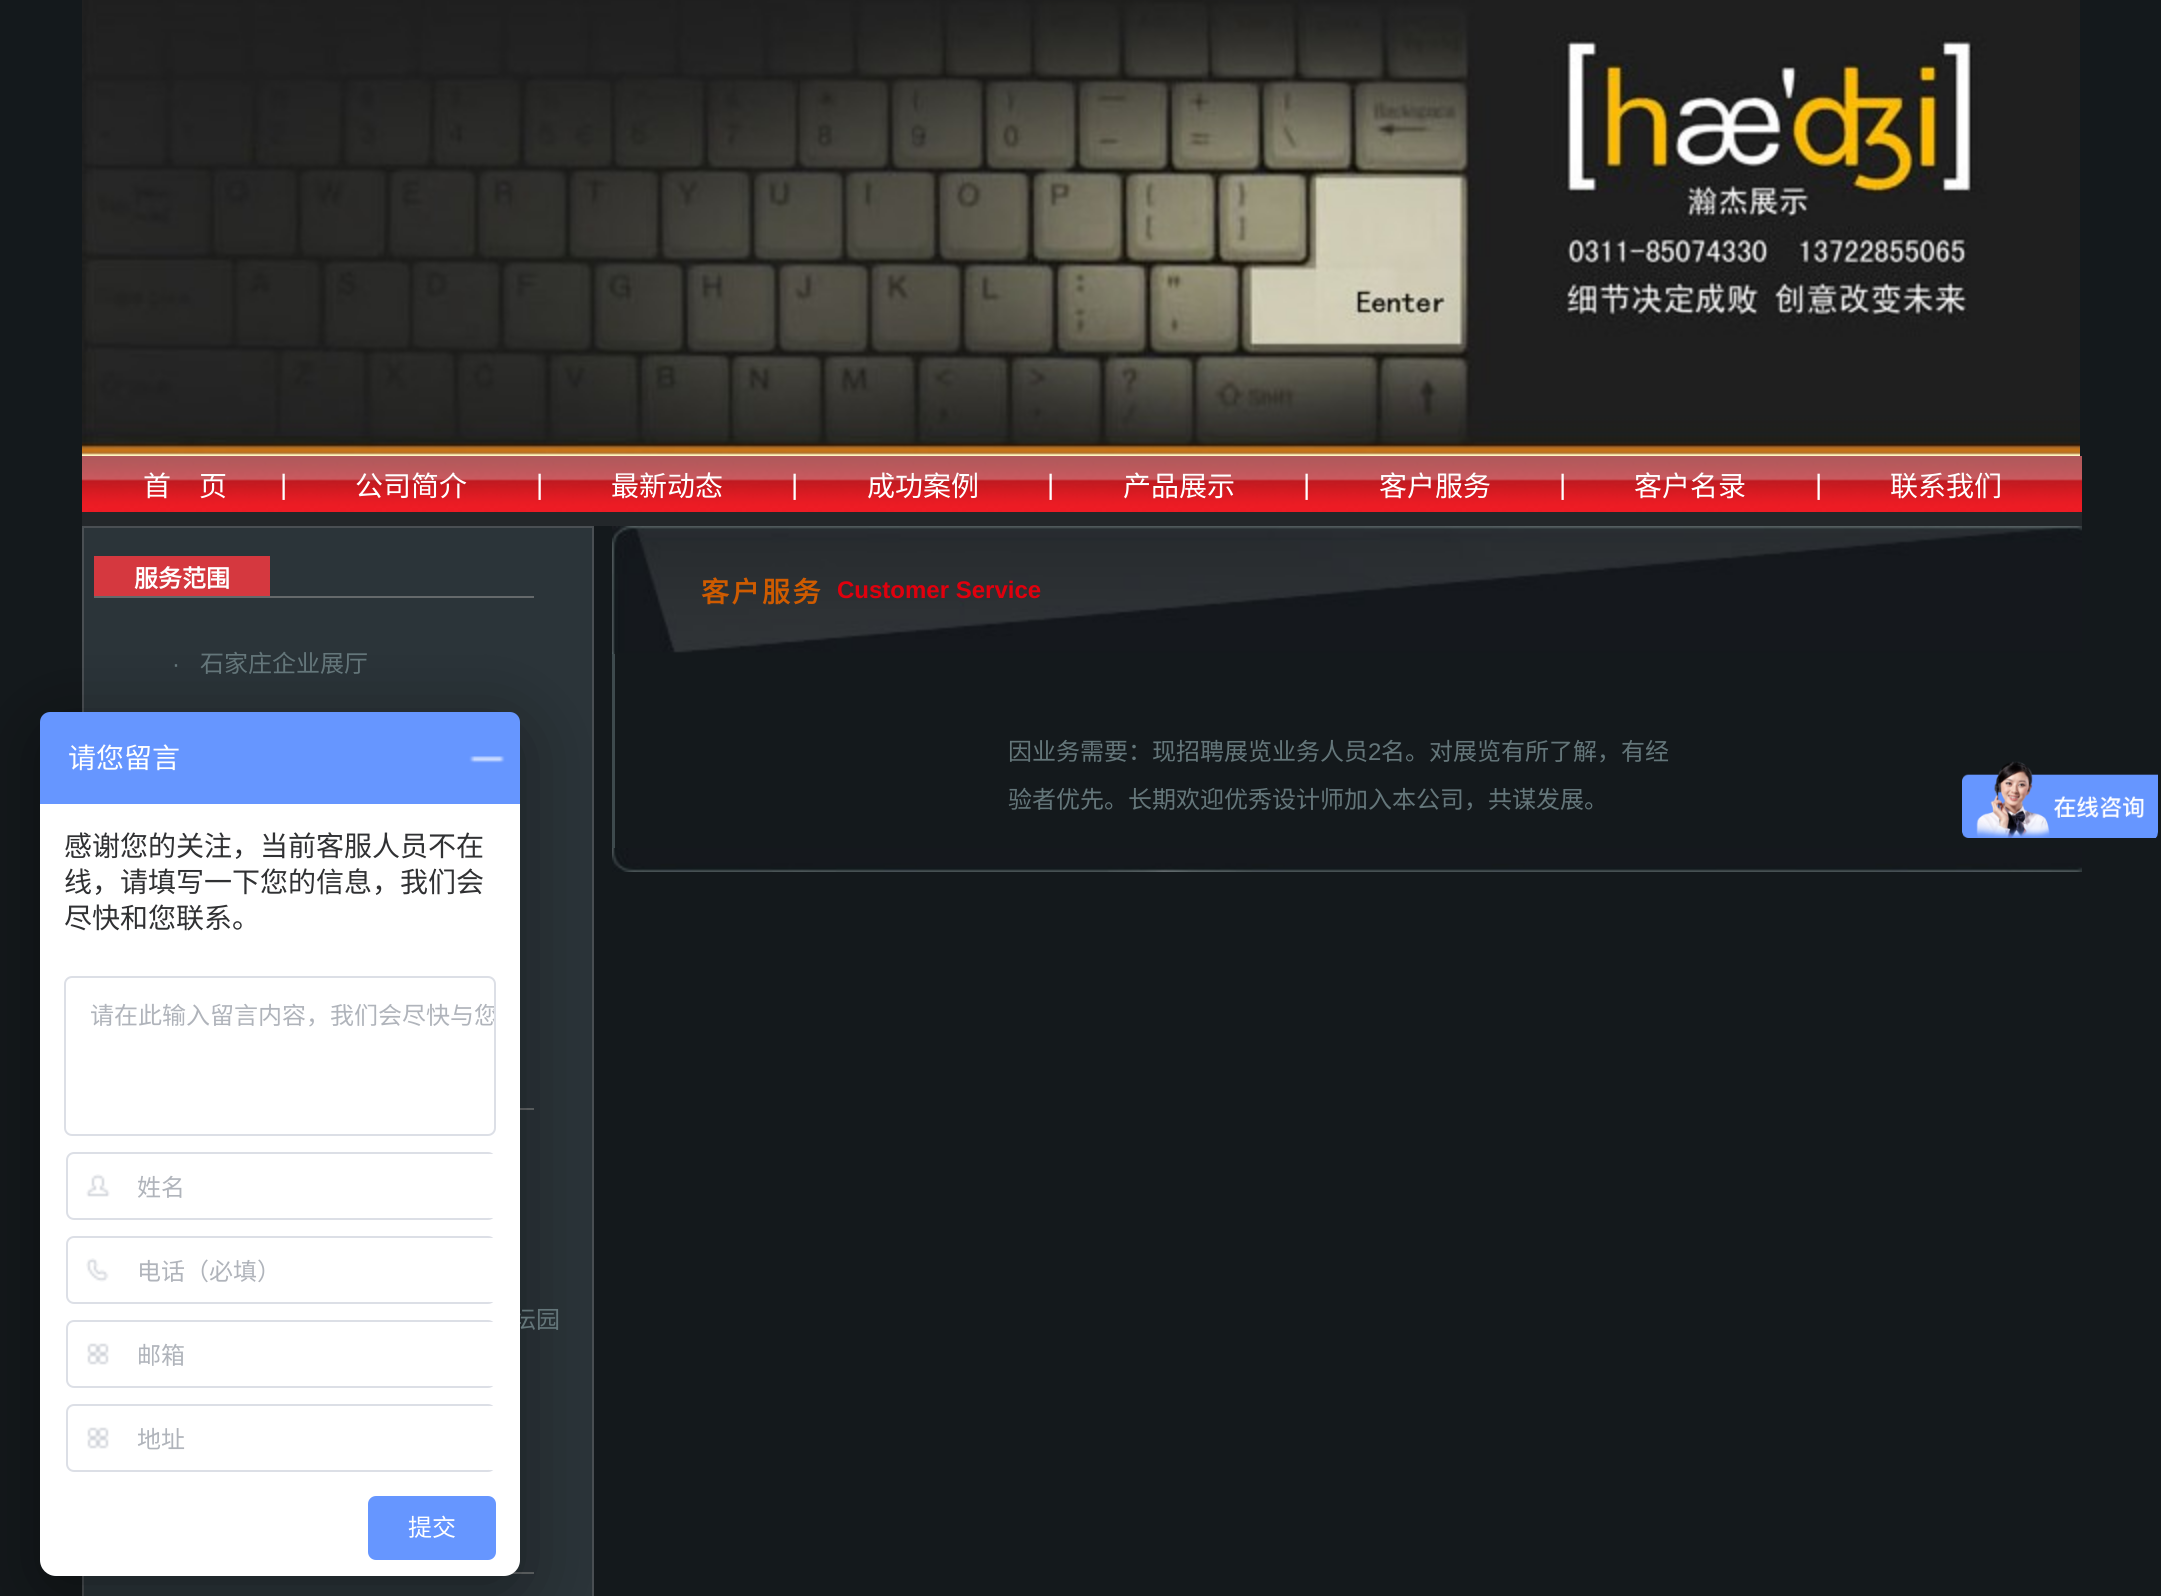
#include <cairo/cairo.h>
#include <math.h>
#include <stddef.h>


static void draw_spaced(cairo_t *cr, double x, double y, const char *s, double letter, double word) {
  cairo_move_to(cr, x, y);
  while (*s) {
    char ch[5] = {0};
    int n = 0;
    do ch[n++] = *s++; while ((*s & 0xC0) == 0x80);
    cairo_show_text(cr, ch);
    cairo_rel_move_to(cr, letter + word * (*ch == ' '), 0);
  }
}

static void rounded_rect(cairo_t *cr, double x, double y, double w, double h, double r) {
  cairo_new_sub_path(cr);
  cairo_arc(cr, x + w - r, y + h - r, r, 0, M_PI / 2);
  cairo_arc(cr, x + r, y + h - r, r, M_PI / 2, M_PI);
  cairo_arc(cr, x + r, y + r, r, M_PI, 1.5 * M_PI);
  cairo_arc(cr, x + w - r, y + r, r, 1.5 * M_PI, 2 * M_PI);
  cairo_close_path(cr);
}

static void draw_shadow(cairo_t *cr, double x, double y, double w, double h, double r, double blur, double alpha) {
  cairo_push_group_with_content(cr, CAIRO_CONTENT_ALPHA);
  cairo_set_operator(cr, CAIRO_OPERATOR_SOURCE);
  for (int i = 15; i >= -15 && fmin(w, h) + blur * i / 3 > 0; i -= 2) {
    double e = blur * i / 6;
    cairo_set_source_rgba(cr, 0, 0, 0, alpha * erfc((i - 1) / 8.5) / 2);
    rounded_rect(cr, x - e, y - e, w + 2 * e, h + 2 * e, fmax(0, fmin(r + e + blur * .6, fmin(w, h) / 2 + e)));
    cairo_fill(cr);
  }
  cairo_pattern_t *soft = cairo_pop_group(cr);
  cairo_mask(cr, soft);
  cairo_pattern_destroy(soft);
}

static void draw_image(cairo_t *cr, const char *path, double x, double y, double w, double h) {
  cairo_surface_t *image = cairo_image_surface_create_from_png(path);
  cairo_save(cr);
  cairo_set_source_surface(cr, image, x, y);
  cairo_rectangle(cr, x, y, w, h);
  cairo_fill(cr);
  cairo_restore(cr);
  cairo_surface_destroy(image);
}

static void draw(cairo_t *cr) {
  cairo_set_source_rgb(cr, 20 / 255.0, 25 / 255.0, 28 / 255.0);
  cairo_paint(cr);
  draw_image(cr, "images/1.png", 82, 0, 1998, 456);
  draw_image(cr, "images/2.png", 82, 456, 2000, 56);
  cairo_set_source_rgb(cr, 35 / 255.0, 39 / 255.0, 42 / 255.0);
  cairo_rectangle(cr, 82, 512, 2000, 14);
  cairo_fill(cr);
  cairo_rectangle(cr, 83, 527, 510, 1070);
  cairo_set_source_rgb(cr, 74 / 255.0, 79 / 255.0, 83 / 255.0);
  cairo_stroke(cr);
  cairo_set_source_rgb(cr, 43 / 255.0, 52 / 255.0, 57 / 255.0);
  cairo_rectangle(cr, 84, 528, 508, 1068);
  cairo_fill(cr);
  cairo_set_source_rgb(cr, 213 / 255.0, 56 / 255.0, 63 / 255.0);
  cairo_rectangle(cr, 94, 556, 176, 40);
  cairo_fill(cr);
  cairo_set_source_rgb(cr, 101 / 255.0, 105 / 255.0, 107 / 255.0);
  cairo_rectangle(cr, 94, 596, 440, 2);
  cairo_fill(cr);
  cairo_rectangle(cr, 520, 1108, 14, 2);
  cairo_fill(cr);
  cairo_rectangle(cr, 511, 1572, 23, 2);
  cairo_fill(cr);
  draw_image(cr, "images/3.png", 612, 526, 1470, 128);
  cairo_set_source_rgb(cr, 62 / 255.0, 74 / 255.0, 77 / 255.0);
  cairo_rectangle(cr, 612, 654, 3, 194);
  cairo_fill(cr);
  draw_image(cr, "images/4.png", 612, 848, 1470, 24);
  cairo_set_source_rgb(cr, 0, 0, 0);
  draw_shadow(cr, 40, 728, 480, 864, 16, 40, 0.4);
  draw_image(cr, "images/9.png", 1962, 761, 196, 77);
  cairo_select_font_face(cr, "Noto Sans CJK SC", CAIRO_FONT_SLANT_NORMAL, CAIRO_FONT_WEIGHT_NORMAL);
  cairo_set_font_size(cr, 28);
  cairo_set_source_rgb(cr, 1, 1, 1);
  cairo_move_to(cr, 143, 496);
  cairo_show_text(cr, "首　页");
  cairo_select_font_face(cr, "Liberation Sans", CAIRO_FONT_SLANT_NORMAL, CAIRO_FONT_WEIGHT_NORMAL);
  cairo_move_to(cr, 280, 494);
  cairo_show_text(cr, "|");
  cairo_select_font_face(cr, "Noto Sans CJK SC", CAIRO_FONT_SLANT_NORMAL, CAIRO_FONT_WEIGHT_NORMAL);
  cairo_move_to(cr, 355, 496);
  cairo_show_text(cr, "公司简介");
  cairo_select_font_face(cr, "Liberation Sans", CAIRO_FONT_SLANT_NORMAL, CAIRO_FONT_WEIGHT_NORMAL);
  cairo_move_to(cr, 536, 494);
  cairo_show_text(cr, "|");
  cairo_select_font_face(cr, "Noto Sans CJK SC", CAIRO_FONT_SLANT_NORMAL, CAIRO_FONT_WEIGHT_NORMAL);
  cairo_move_to(cr, 611, 496);
  cairo_show_text(cr, "最新动态");
  cairo_select_font_face(cr, "Liberation Sans", CAIRO_FONT_SLANT_NORMAL, CAIRO_FONT_WEIGHT_NORMAL);
  cairo_move_to(cr, 791, 494);
  cairo_show_text(cr, "|");
  cairo_select_font_face(cr, "Noto Sans CJK SC", CAIRO_FONT_SLANT_NORMAL, CAIRO_FONT_WEIGHT_NORMAL);
  cairo_move_to(cr, 867, 496);
  cairo_show_text(cr, "成功案例");
  cairo_select_font_face(cr, "Liberation Sans", CAIRO_FONT_SLANT_NORMAL, CAIRO_FONT_WEIGHT_NORMAL);
  cairo_move_to(cr, 1047, 494);
  cairo_show_text(cr, "|");
  cairo_select_font_face(cr, "Noto Sans CJK SC", CAIRO_FONT_SLANT_NORMAL, CAIRO_FONT_WEIGHT_NORMAL);
  cairo_move_to(cr, 1123, 496);
  cairo_show_text(cr, "产品展示");
  cairo_select_font_face(cr, "Liberation Sans", CAIRO_FONT_SLANT_NORMAL, CAIRO_FONT_WEIGHT_NORMAL);
  cairo_move_to(cr, 1303, 494);
  cairo_show_text(cr, "|");
  cairo_select_font_face(cr, "Noto Sans CJK SC", CAIRO_FONT_SLANT_NORMAL, CAIRO_FONT_WEIGHT_NORMAL);
  cairo_move_to(cr, 1379, 496);
  cairo_show_text(cr, "客户服务");
  cairo_select_font_face(cr, "Liberation Sans", CAIRO_FONT_SLANT_NORMAL, CAIRO_FONT_WEIGHT_NORMAL);
  cairo_move_to(cr, 1559, 494);
  cairo_show_text(cr, "|");
  cairo_select_font_face(cr, "Noto Sans CJK SC", CAIRO_FONT_SLANT_NORMAL, CAIRO_FONT_WEIGHT_NORMAL);
  cairo_move_to(cr, 1634, 496);
  cairo_show_text(cr, "客户名录");
  cairo_select_font_face(cr, "Liberation Sans", CAIRO_FONT_SLANT_NORMAL, CAIRO_FONT_WEIGHT_NORMAL);
  cairo_move_to(cr, 1815, 494);
  cairo_show_text(cr, "|");
  cairo_select_font_face(cr, "Noto Sans CJK SC", CAIRO_FONT_SLANT_NORMAL, CAIRO_FONT_WEIGHT_NORMAL);
  cairo_move_to(cr, 1890, 496);
  cairo_show_text(cr, "联系我们");
  cairo_select_font_face(cr, "Noto Sans CJK SC", CAIRO_FONT_SLANT_NORMAL, CAIRO_FONT_WEIGHT_BOLD);
  cairo_set_font_size(cr, 24);
  cairo_move_to(cr, 134, 587);
  cairo_show_text(cr, "服务范围");
  cairo_select_font_face(cr, "Liberation Sans", CAIRO_FONT_SLANT_NORMAL, CAIRO_FONT_WEIGHT_NORMAL);
  cairo_set_source_rgb(cr, 100 / 255.0, 118 / 255.0, 122 / 255.0);
  cairo_move_to(cr, 172, 672);
  cairo_show_text(cr, "·");
  cairo_select_font_face(cr, "Noto Sans CJK SC", CAIRO_FONT_SLANT_NORMAL, CAIRO_FONT_WEIGHT_NORMAL);
  cairo_move_to(cr, 200, 672);
  cairo_show_text(cr, "石家庄企业展厅");
  cairo_move_to(cr, 512, 1328);
  cairo_show_text(cr, "坛园");
  cairo_select_font_face(cr, "Noto Sans CJK SC", CAIRO_FONT_SLANT_NORMAL, CAIRO_FONT_WEIGHT_BOLD);
  cairo_set_font_size(cr, 28);
  cairo_set_source_rgb(cr, 207 / 255.0, 91 / 255.0, 0);
  draw_spaced(cr, 701, 602, "客户服务", 2.5, 0);
  cairo_select_font_face(cr, "Liberation Sans", CAIRO_FONT_SLANT_NORMAL, CAIRO_FONT_WEIGHT_BOLD);
  cairo_set_font_size(cr, 24);
  cairo_set_source_rgb(cr, 225 / 255.0, 0, 13 / 255.0);
  cairo_move_to(cr, 837, 598);
  cairo_show_text(cr, "Customer Service");
  cairo_select_font_face(cr, "Noto Sans CJK SC", CAIRO_FONT_SLANT_NORMAL, CAIRO_FONT_WEIGHT_NORMAL);
  cairo_set_source_rgb(cr, 100 / 255.0, 118 / 255.0, 122 / 255.0);
  cairo_move_to(cr, 1008, 760);
  cairo_show_text(cr, "因业务需要：现招聘展览业务人员");
  cairo_select_font_face(cr, "Liberation Sans", CAIRO_FONT_SLANT_NORMAL, CAIRO_FONT_WEIGHT_NORMAL);
  cairo_move_to(cr, 1368, 760);
  cairo_show_text(cr, "2");
  cairo_select_font_face(cr, "Noto Sans CJK SC", CAIRO_FONT_SLANT_NORMAL, CAIRO_FONT_WEIGHT_NORMAL);
  cairo_move_to(cr, 1381, 760);
  cairo_show_text(cr, "名。对展览有所了解，有经");
  cairo_move_to(cr, 1008, 808);
  cairo_show_text(cr, "验者优先。长期欢迎优秀设计师加入本公司，共谋发展。");
  cairo_set_source_rgb(cr, 1, 1, 1);
  rounded_rect(cr, 40, 712, 480, 864, 16);
  cairo_fill(cr);
  cairo_set_source_rgb(cr, 102 / 255.0, 150 / 255.0, 1);
  cairo_new_path(cr);
  cairo_move_to(cr, 50, 712);
  cairo_line_to(cr, 510, 712);
  cairo_curve_to(cr, 515.5, 712, 520, 716.5, 520, 722);
  cairo_line_to(cr, 520, 804);
  cairo_line_to(cr, 40, 804);
  cairo_line_to(cr, 40, 722);
  cairo_curve_to(cr, 40, 716.5, 44.5, 712, 50, 712);
  cairo_close_path(cr);
  cairo_fill(cr);
  cairo_set_font_size(cr, 28);
  cairo_set_source_rgb(cr, 1, 1, 1);
  cairo_move_to(cr, 68, 768);
  cairo_show_text(cr, "请您留言");
  draw_image(cr, "images/5.png", 469, 756, 36, 7);
  cairo_set_source_rgb(cr, 48 / 255.0, 49 / 255.0, 51 / 255.0);
  cairo_move_to(cr, 64, 856);
  cairo_show_text(cr, "感谢您的关注，当前客服人员不在");
  cairo_move_to(cr, 64, 892);
  cairo_show_text(cr, "线，请填写一下您的信息，我们会");
  cairo_move_to(cr, 64, 928);
  cairo_show_text(cr, "尽快和您联系。");
  rounded_rect(cr, 65, 977, 430, 158, 7);
  cairo_set_source_rgb(cr, 220 / 255.0, 223 / 255.0, 230 / 255.0);
  cairo_stroke(cr);
  cairo_save(cr);
  rounded_rect(cr, 66, 978, 428, 156, 6);
  cairo_clip(cr);
  cairo_set_font_size(cr, 24);
  cairo_set_source_rgb(cr, 176 / 255.0, 180 / 255.0, 187 / 255.0);
  cairo_move_to(cr, 90, 1024);
  cairo_show_text(cr, "请在此输入留言内容，我们会尽快与您");
  cairo_restore(cr);
  rounded_rect(cr, 67, 1153, 428, 66, 7);
  cairo_stroke(cr);
  draw_image(cr, "images/6.png", 86, 1174, 24, 23);
  cairo_set_source_rgb(cr, 1, 1, 1);
  cairo_rectangle(cr, 489, 1154, 7, 64);
  cairo_fill(cr);
  cairo_set_font_size(cr, 24);
  cairo_set_source_rgb(cr, 176 / 255.0, 180 / 255.0, 187 / 255.0);
  cairo_move_to(cr, 137, 1196);
  cairo_show_text(cr, "姓名");
  rounded_rect(cr, 67, 1237, 428, 66, 7);
  cairo_set_source_rgb(cr, 220 / 255.0, 223 / 255.0, 230 / 255.0);
  cairo_stroke(cr);
  draw_image(cr, "images/7.png", 86, 1258, 23, 24);
  cairo_set_source_rgb(cr, 1, 1, 1);
  cairo_rectangle(cr, 489, 1238, 7, 64);
  cairo_fill(cr);
  cairo_set_source_rgb(cr, 176 / 255.0, 180 / 255.0, 187 / 255.0);
  cairo_move_to(cr, 137, 1280);
  cairo_show_text(cr, "电话（必填）");
  rounded_rect(cr, 67, 1321, 428, 66, 7);
  cairo_set_source_rgb(cr, 220 / 255.0, 223 / 255.0, 230 / 255.0);
  cairo_stroke(cr);
  draw_image(cr, "images/8.png", 87, 1343, 22, 22);
  cairo_set_source_rgb(cr, 1, 1, 1);
  cairo_rectangle(cr, 489, 1322, 7, 64);
  cairo_fill(cr);
  cairo_set_source_rgb(cr, 176 / 255.0, 180 / 255.0, 187 / 255.0);
  cairo_move_to(cr, 137, 1364);
  cairo_show_text(cr, "邮箱");
  rounded_rect(cr, 67, 1405, 428, 66, 7);
  cairo_set_source_rgb(cr, 220 / 255.0, 223 / 255.0, 230 / 255.0);
  cairo_stroke(cr);
  draw_image(cr, "images/8.png", 87, 1427, 22, 22);
  cairo_set_source_rgb(cr, 1, 1, 1);
  cairo_rectangle(cr, 489, 1406, 7, 64);
  cairo_fill(cr);
  cairo_set_source_rgb(cr, 176 / 255.0, 180 / 255.0, 187 / 255.0);
  cairo_move_to(cr, 137, 1448);
  cairo_show_text(cr, "地址");
  cairo_set_source_rgb(cr, 102 / 255.0, 150 / 255.0, 1);
  rounded_rect(cr, 368, 1496, 128, 64, 8);
  cairo_fill(cr);
  cairo_set_source_rgb(cr, 1, 1, 1);
  cairo_move_to(cr, 408, 1536);
  cairo_show_text(cr, "提交");
}

int main(void) {
  cairo_surface_t *surface = cairo_image_surface_create(CAIRO_FORMAT_RGB24, 2161, 1596);
  cairo_t *cr = cairo_create(surface);
  cairo_font_options_t *options = cairo_font_options_create();
  cairo_font_options_set_hint_metrics(options, CAIRO_HINT_METRICS_OFF);
  cairo_font_options_set_hint_style(options, CAIRO_HINT_STYLE_NONE);
  cairo_set_font_options(cr, options);
  cairo_set_miter_limit(cr, 4);
  draw(cr);
  cairo_surface_write_to_png(surface, "out.png");
  cairo_font_options_destroy(options);
  cairo_destroy(cr);
  cairo_surface_destroy(surface);
  return 0;
}
